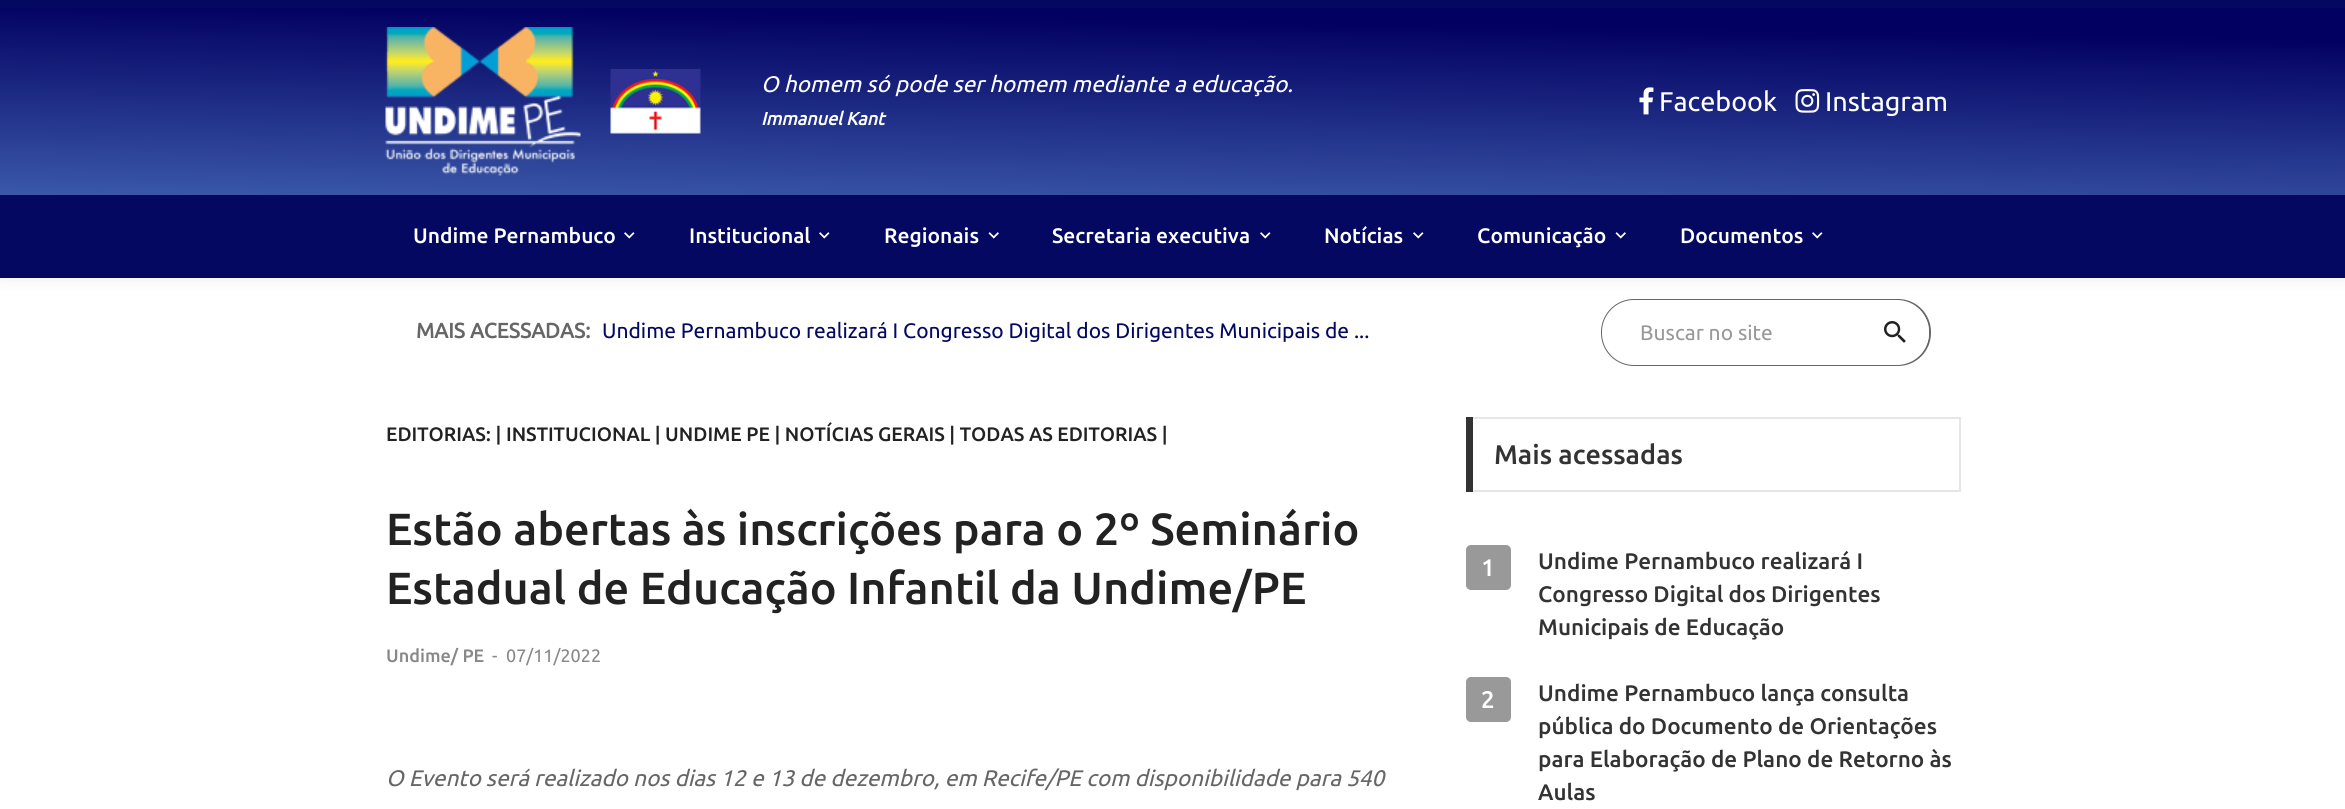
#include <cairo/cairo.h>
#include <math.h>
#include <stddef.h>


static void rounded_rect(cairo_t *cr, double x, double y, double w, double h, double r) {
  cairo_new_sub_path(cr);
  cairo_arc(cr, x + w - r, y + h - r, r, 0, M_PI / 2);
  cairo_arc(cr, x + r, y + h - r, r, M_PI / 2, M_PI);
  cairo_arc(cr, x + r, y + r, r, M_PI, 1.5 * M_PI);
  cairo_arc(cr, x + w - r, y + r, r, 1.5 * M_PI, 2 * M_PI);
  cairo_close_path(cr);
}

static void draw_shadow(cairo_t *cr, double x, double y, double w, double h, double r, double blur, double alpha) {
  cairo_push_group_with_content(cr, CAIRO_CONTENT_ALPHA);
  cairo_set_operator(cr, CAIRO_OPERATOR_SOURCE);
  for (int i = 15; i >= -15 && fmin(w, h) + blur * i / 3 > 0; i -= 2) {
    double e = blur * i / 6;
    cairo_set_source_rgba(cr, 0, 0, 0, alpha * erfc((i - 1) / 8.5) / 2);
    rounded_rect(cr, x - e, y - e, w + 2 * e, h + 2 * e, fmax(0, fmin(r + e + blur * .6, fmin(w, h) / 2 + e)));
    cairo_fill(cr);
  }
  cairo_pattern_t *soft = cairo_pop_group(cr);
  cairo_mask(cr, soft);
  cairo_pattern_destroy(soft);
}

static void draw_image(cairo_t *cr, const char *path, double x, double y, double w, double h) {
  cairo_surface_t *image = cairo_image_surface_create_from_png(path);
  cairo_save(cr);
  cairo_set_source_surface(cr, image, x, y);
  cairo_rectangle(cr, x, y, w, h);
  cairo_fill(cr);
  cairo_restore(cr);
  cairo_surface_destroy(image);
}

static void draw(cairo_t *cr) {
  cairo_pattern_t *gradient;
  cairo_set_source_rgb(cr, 1, 1, 1);
  cairo_paint(cr);
  cairo_set_source_rgb(cr, 4 / 255.0, 8 / 255.0, 97 / 255.0);
  cairo_rectangle(cr, 0, 0, 2345, 8);
  cairo_fill(cr);
  gradient = cairo_pattern_create_linear(1175, -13, 1169, 349);
  cairo_pattern_add_color_stop_rgba(gradient, 0.09, 2 / 255.0, 0, 97 / 255.0, 1);
  cairo_pattern_add_color_stop_rgba(gradient, 1, 97 / 255.0, 149 / 255.0, 219 / 255.0, 1);
  cairo_set_source(cr, gradient);
  cairo_pattern_destroy(gradient);
  cairo_rectangle(cr, 0, 8, 2345, 187);
  cairo_fill(cr);
  draw_image(cr, "images/1.png", 385, 27, 196, 149);
  draw_image(cr, "images/2.png", 610, 69, 91, 65);
  draw_image(cr, "images/3.png", 1639, 87, 15, 28);
  draw_image(cr, "images/4.png", 1795, 89, 25, 24);
  rounded_rect(cr, 1602, 300, 328, 65, 32);
  cairo_set_source_rgb(cr, 102 / 255.0, 102 / 255.0, 102 / 255.0);
  cairo_stroke(cr);
  cairo_set_source_rgb(cr, 1, 1, 1);
  rounded_rect(cr, 1602, 300, 327, 65, 32);
  cairo_fill(cr);
  cairo_set_source_rgb(cr, 0, 0, 0);
  draw_shadow(cr, 0, 200, 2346, 82, 0, 6, 0.05);
  cairo_set_source_rgb(cr, 4 / 255.0, 8 / 255.0, 97 / 255.0);
  cairo_rectangle(cr, 0, 195, 2345, 83);
  cairo_fill(cr);
  draw_image(cr, "images/5.png", 624, 232, 11, 7);
  draw_image(cr, "images/5.png", 819, 232, 11, 7);
  draw_image(cr, "images/6.png", 988, 232, 11, 7);
  draw_image(cr, "images/5.png", 1260, 232, 11, 7);
  draw_image(cr, "images/5.png", 1413, 232, 11, 7);
  draw_image(cr, "images/6.png", 1615, 232, 11, 7);
  draw_image(cr, "images/5.png", 1812, 232, 11, 7);
  draw_image(cr, "images/7.png", 1884, 321, 22, 22);
  cairo_rectangle(cr, 1467, 418, 493, 73);
  cairo_set_source_rgb(cr, 230 / 255.0, 230 / 255.0, 230 / 255.0);
  cairo_stroke(cr);
  cairo_set_source_rgb(cr, 51 / 255.0, 51 / 255.0, 51 / 255.0);
  cairo_rectangle(cr, 1466, 417, 7, 75);
  cairo_fill(cr);
  cairo_set_source_rgb(cr, 153 / 255.0, 153 / 255.0, 153 / 255.0);
  rounded_rect(cr, 1466, 545, 45, 45, 5);
  cairo_fill(cr);
  rounded_rect(cr, 1466, 677, 45, 45, 5);
  cairo_fill(cr);
  cairo_select_font_face(cr, "Ubuntu", CAIRO_FONT_SLANT_ITALIC, CAIRO_FONT_WEIGHT_NORMAL);
  cairo_set_font_size(cr, 22.5);
  cairo_set_source_rgb(cr, 1, 1, 1);
  cairo_move_to(cr, 761, 92);
  cairo_show_text(cr, "O homem só pode ser homem mediante a educação.");
  cairo_select_font_face(cr, "Ubuntu", CAIRO_FONT_SLANT_ITALIC, CAIRO_FONT_WEIGHT_BOLD);
  cairo_set_font_size(cr, 18);
  cairo_move_to(cr, 761, 125);
  cairo_show_text(cr, "Immanuel Kant");
  cairo_select_font_face(cr, "Ubuntu", CAIRO_FONT_SLANT_NORMAL, CAIRO_FONT_WEIGHT_NORMAL);
  cairo_set_font_size(cr, 27);
  cairo_move_to(cr, 1659, 111);
  cairo_show_text(cr, "Facebook");
  cairo_move_to(cr, 1825, 111);
  cairo_show_text(cr, "Instagram");
  cairo_select_font_face(cr, "Ubuntu Medium", CAIRO_FONT_SLANT_NORMAL, CAIRO_FONT_WEIGHT_NORMAL);
  cairo_set_font_size(cr, 21);
  cairo_move_to(cr, 413, 243);
  cairo_show_text(cr, "Undime Pernambuco");
  cairo_move_to(cr, 689, 243);
  cairo_show_text(cr, "Institucional");
  cairo_move_to(cr, 884, 243);
  cairo_show_text(cr, "Regionais");
  cairo_move_to(cr, 1052, 243);
  cairo_show_text(cr, "Secretaria executiva");
  cairo_move_to(cr, 1324, 243);
  cairo_show_text(cr, "Notícias");
  cairo_move_to(cr, 1477, 243);
  cairo_show_text(cr, "Comunicação");
  cairo_move_to(cr, 1680, 243);
  cairo_show_text(cr, "Documentos");
  cairo_select_font_face(cr, "Ubuntu", CAIRO_FONT_SLANT_NORMAL, CAIRO_FONT_WEIGHT_BOLD);
  cairo_set_source_rgb(cr, 102 / 255.0, 102 / 255.0, 102 / 255.0);
  cairo_move_to(cr, 416, 338);
  cairo_show_text(cr, "MAIS ACESSADAS:");
  cairo_select_font_face(cr, "Ubuntu", CAIRO_FONT_SLANT_NORMAL, CAIRO_FONT_WEIGHT_NORMAL);
  cairo_set_source_rgb(cr, 4 / 255.0, 8 / 255.0, 97 / 255.0);
  cairo_move_to(cr, 602, 338);
  cairo_show_text(cr, "Undime Pernambuco realizará I Congresso Digital dos Dirigentes Municipais de ...");
  cairo_set_source_rgb(cr, 153 / 255.0, 153 / 255.0, 153 / 255.0);
  cairo_move_to(cr, 1640, 340);
  cairo_show_text(cr, "Buscar no site");
  cairo_select_font_face(cr, "Ubuntu Medium", CAIRO_FONT_SLANT_NORMAL, CAIRO_FONT_WEIGHT_NORMAL);
  cairo_set_font_size(cr, 19.5);
  cairo_set_source_rgb(cr, 34 / 255.0, 34 / 255.0, 34 / 255.0);
  cairo_move_to(cr, 386, 441);
  cairo_show_text(cr, "EDITORIAS: | INSTITUCIONAL | UNDIME PE | NOTÍCIAS GERAIS | TODAS AS EDITORIAS |");
  cairo_set_font_size(cr, 45);
  cairo_move_to(cr, 386, 545);
  cairo_show_text(cr, "Estão abertas às inscrições para o 2º Seminário");
  cairo_move_to(cr, 386, 604);
  cairo_show_text(cr, "Estadual de Educação Infantil da Undime/PE");
  cairo_set_font_size(cr, 18);
  cairo_set_source_rgb(cr, 136 / 255.0, 136 / 255.0, 136 / 255.0);
  cairo_move_to(cr, 386, 662);
  cairo_show_text(cr, "Undime/ PE");
  cairo_select_font_face(cr, "Ubuntu", CAIRO_FONT_SLANT_NORMAL, CAIRO_FONT_WEIGHT_NORMAL);
  cairo_move_to(cr, 492, 662);
  cairo_show_text(cr, "-");
  cairo_move_to(cr, 506, 662);
  cairo_show_text(cr, "07/11/2022");
  cairo_select_font_face(cr, "Ubuntu", CAIRO_FONT_SLANT_ITALIC, CAIRO_FONT_WEIGHT_NORMAL);
  cairo_set_font_size(cr, 22.5);
  cairo_set_source_rgb(cr, 102 / 255.0, 102 / 255.0, 102 / 255.0);
  cairo_move_to(cr, 386, 786);
  cairo_show_text(cr, "O Evento será realizado nos dias 12 e 13 de dezembro, em Recife/PE com disponibilidade para 540");
  cairo_select_font_face(cr, "Ubuntu Medium", CAIRO_FONT_SLANT_NORMAL, CAIRO_FONT_WEIGHT_NORMAL);
  cairo_set_font_size(cr, 27);
  cairo_set_source_rgb(cr, 51 / 255.0, 51 / 255.0, 51 / 255.0);
  cairo_move_to(cr, 1494, 464);
  cairo_show_text(cr, "Mais acessadas");
  cairo_set_font_size(cr, 24);
  cairo_set_source_rgb(cr, 1, 1, 1);
  cairo_move_to(cr, 1481, 576);
  cairo_show_text(cr, "1");
  cairo_set_font_size(cr, 22.5);
  cairo_set_source_rgb(cr, 51 / 255.0, 51 / 255.0, 51 / 255.0);
  cairo_move_to(cr, 1538, 569);
  cairo_show_text(cr, "Undime Pernambuco realizará I");
  cairo_move_to(cr, 1538, 602);
  cairo_show_text(cr, "Congresso Digital dos Dirigentes");
  cairo_move_to(cr, 1538, 635);
  cairo_show_text(cr, "Municipais de Educação");
  cairo_set_font_size(cr, 24);
  cairo_set_source_rgb(cr, 1, 1, 1);
  cairo_move_to(cr, 1481, 708);
  cairo_show_text(cr, "2");
  cairo_set_font_size(cr, 22.5);
  cairo_set_source_rgb(cr, 51 / 255.0, 51 / 255.0, 51 / 255.0);
  cairo_move_to(cr, 1538, 701);
  cairo_show_text(cr, "Undime Pernambuco lança consulta");
  cairo_move_to(cr, 1538, 734);
  cairo_show_text(cr, "pública do Documento de Orientações");
  cairo_move_to(cr, 1538, 767);
  cairo_show_text(cr, "para Elaboração de Plano de Retorno às");
  cairo_move_to(cr, 1538, 800);
  cairo_show_text(cr, "Aulas");
}

int main(void) {
  cairo_surface_t *surface = cairo_image_surface_create(CAIRO_FORMAT_RGB24, 2345, 809);
  cairo_t *cr = cairo_create(surface);
  cairo_font_options_t *options = cairo_font_options_create();
  cairo_font_options_set_hint_metrics(options, CAIRO_HINT_METRICS_OFF);
  cairo_font_options_set_hint_style(options, CAIRO_HINT_STYLE_NONE);
  cairo_set_font_options(cr, options);
  cairo_set_miter_limit(cr, 4);
  draw(cr);
  cairo_surface_write_to_png(surface, "out.png");
  cairo_font_options_destroy(options);
  cairo_destroy(cr);
  cairo_surface_destroy(surface);
  return 0;
}
